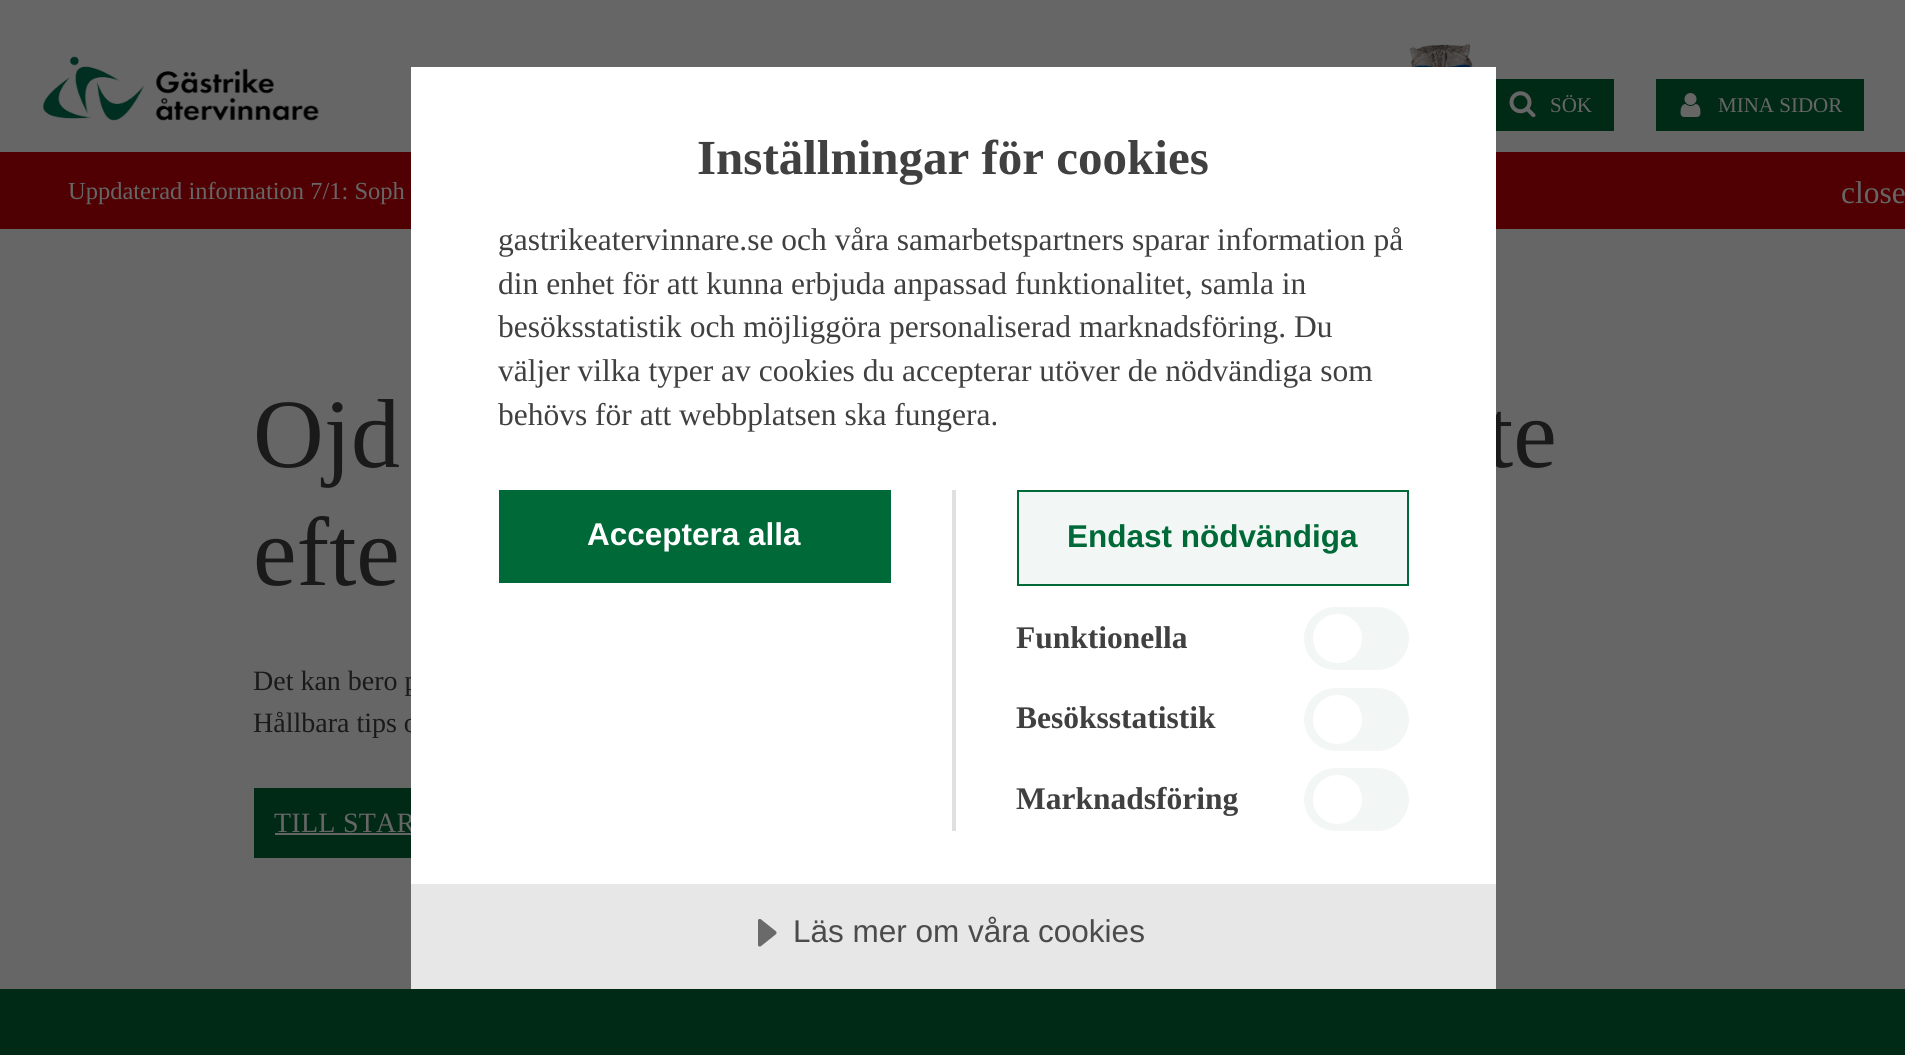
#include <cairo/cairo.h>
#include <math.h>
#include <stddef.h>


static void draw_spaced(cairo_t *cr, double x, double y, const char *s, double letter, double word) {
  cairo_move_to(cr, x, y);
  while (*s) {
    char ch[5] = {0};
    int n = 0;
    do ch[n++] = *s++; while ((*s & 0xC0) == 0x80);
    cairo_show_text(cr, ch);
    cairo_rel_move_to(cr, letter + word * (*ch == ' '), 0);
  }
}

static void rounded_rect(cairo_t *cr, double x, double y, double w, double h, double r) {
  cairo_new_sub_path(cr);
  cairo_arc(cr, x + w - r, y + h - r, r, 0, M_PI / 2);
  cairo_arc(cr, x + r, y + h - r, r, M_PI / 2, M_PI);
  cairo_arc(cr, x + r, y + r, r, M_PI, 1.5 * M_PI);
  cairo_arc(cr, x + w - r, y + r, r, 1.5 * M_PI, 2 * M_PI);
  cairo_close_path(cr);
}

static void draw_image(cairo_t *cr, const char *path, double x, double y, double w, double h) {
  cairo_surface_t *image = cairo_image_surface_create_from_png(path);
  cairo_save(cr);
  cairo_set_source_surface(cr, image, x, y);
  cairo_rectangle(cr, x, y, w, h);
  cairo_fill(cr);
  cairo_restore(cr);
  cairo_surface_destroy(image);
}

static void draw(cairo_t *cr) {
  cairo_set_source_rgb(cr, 102 / 255.0, 102 / 255.0, 102 / 255.0);
  cairo_paint(cr);
  draw_image(cr, "images/1.png", 42, 56, 277, 65);
  draw_image(cr, "images/2.png", 1409, 44, 64, 23);
  cairo_set_source_rgb(cr, 0, 42 / 255.0, 22 / 255.0);
  cairo_rectangle(cr, 1496, 79, 118, 52);
  cairo_fill(cr);
  draw_image(cr, "images/3.png", 1509, 91, 27, 26);
  cairo_rectangle(cr, 1656, 79, 208, 52);
  cairo_fill(cr);
  draw_image(cr, "images/4.png", 1680, 93, 21, 24);
  cairo_set_source_rgb(cr, 80 / 255.0, 0, 2 / 255.0);
  cairo_rectangle(cr, 0, 152, 1905, 77);
  cairo_fill(cr);
  cairo_set_source_rgb(cr, 231 / 255.0, 231 / 255.0, 231 / 255.0);
  cairo_rectangle(cr, 411, 884, 1085, 105);
  cairo_fill(cr);
  draw_image(cr, "images/5.png", 758, 919, 19, 28);
  cairo_set_source_rgb(cr, 0, 42 / 255.0, 22 / 255.0);
  cairo_rectangle(cr, 254, 788, 157, 70);
  cairo_fill(cr);
  cairo_set_source_rgb(cr, 102 / 255.0, 102 / 255.0, 102 / 255.0);
  cairo_rectangle(cr, 275, 833, 136, 2);
  cairo_fill(cr);
  cairo_set_source_rgb(cr, 0, 42 / 255.0, 22 / 255.0);
  cairo_rectangle(cr, 0, 989, 1905, 66);
  cairo_fill(cr);
  cairo_select_font_face(cr, "Liberation Serif", CAIRO_FONT_SLANT_NORMAL, CAIRO_FONT_WEIGHT_NORMAL);
  cairo_set_font_size(cr, 21);
  cairo_set_source_rgb(cr, 102 / 255.0, 102 / 255.0, 102 / 255.0);
  cairo_move_to(cr, 1550, 112);
  cairo_show_text(cr, "SÖK");
  cairo_move_to(cr, 1718, 112);
  cairo_show_text(cr, "MINA SIDOR");
  cairo_set_font_size(cr, 24.5);
  cairo_move_to(cr, 68, 199);
  cairo_show_text(cr, "Uppdaterad information 7/1: Soph");
  cairo_set_font_size(cr, 31.5);
  cairo_move_to(cr, 1841, 203);
  cairo_show_text(cr, "close");
  cairo_select_font_face(cr, "Liberation Sans", CAIRO_FONT_SLANT_NORMAL, CAIRO_FONT_WEIGHT_NORMAL);
  cairo_set_source_rgb(cr, 75 / 255.0, 75 / 255.0, 75 / 255.0);
  cairo_move_to(cr, 793, 942);
  cairo_show_text(cr, "Läs mer om våra cookies");
  cairo_select_font_face(cr, "Liberation Serif", CAIRO_FONT_SLANT_NORMAL, CAIRO_FONT_WEIGHT_NORMAL);
  cairo_set_font_size(cr, 98);
  cairo_set_source_rgb(cr, 26 / 255.0, 26 / 255.0, 26 / 255.0);
  cairo_move_to(cr, 253, 467);
  cairo_show_text(cr, "Ojd");
  cairo_move_to(cr, 1486, 467);
  cairo_show_text(cr, "te");
  cairo_move_to(cr, 253, 585);
  cairo_show_text(cr, "efte");
  cairo_set_font_size(cr, 28);
  cairo_move_to(cr, 253, 690);
  cairo_show_text(cr, "Det kan bero p");
  cairo_move_to(cr, 253, 732);
  cairo_show_text(cr, "Hållbara tips o");
  cairo_set_source_rgb(cr, 102 / 255.0, 102 / 255.0, 102 / 255.0);
  draw_spaced(cr, 274, 832, "TILL STAR", 0.25, 0);
  cairo_set_source_rgb(cr, 1, 1, 1);
  cairo_rectangle(cr, 411, 67, 1085, 817);
  cairo_fill(cr);
  cairo_set_source_rgb(cr, 242 / 255.0, 247 / 255.0, 245 / 255.0);
  rounded_rect(cr, 1304, 768, 105, 63, 31.5);
  cairo_fill(cr);
  cairo_set_source_rgb(cr, 1, 1, 1);
  cairo_arc(cr, 1337.5, 799.5, 24.5, 0, 2 * M_PI);
  cairo_fill(cr);
  cairo_select_font_face(cr, "Liberation Serif", CAIRO_FONT_SLANT_NORMAL, CAIRO_FONT_WEIGHT_BOLD);
  cairo_set_font_size(cr, 31.5);
  cairo_set_source_rgb(cr, 64 / 255.0, 64 / 255.0, 64 / 255.0);
  cairo_move_to(cr, 1016, 809);
  cairo_show_text(cr, "Marknadsföring");
  cairo_set_source_rgb(cr, 242 / 255.0, 247 / 255.0, 245 / 255.0);
  rounded_rect(cr, 1304, 688, 105, 63, 31.5);
  cairo_fill(cr);
  cairo_set_source_rgb(cr, 1, 1, 1);
  cairo_arc(cr, 1337.5, 719.5, 24.5, 0, 2 * M_PI);
  cairo_fill(cr);
  cairo_set_source_rgb(cr, 64 / 255.0, 64 / 255.0, 64 / 255.0);
  cairo_move_to(cr, 1016, 728);
  cairo_show_text(cr, "Besöksstatistik");
  cairo_set_source_rgb(cr, 242 / 255.0, 247 / 255.0, 245 / 255.0);
  rounded_rect(cr, 1304, 607, 105, 63, 31.5);
  cairo_fill(cr);
  cairo_set_source_rgb(cr, 1, 1, 1);
  cairo_arc(cr, 1337.5, 638.5, 24.5, 0, 2 * M_PI);
  cairo_fill(cr);
  cairo_set_source_rgb(cr, 64 / 255.0, 64 / 255.0, 64 / 255.0);
  cairo_move_to(cr, 1016, 648);
  cairo_show_text(cr, "Funktionella");
  cairo_set_source_rgb(cr, 242 / 255.0, 247 / 255.0, 245 / 255.0);
  cairo_rectangle(cr, 1018, 491, 390, 94);
  cairo_fill_preserve(cr);
  cairo_set_source_rgb(cr, 0, 105 / 255.0, 56 / 255.0);
  cairo_stroke(cr);
  cairo_select_font_face(cr, "Liberation Sans", CAIRO_FONT_SLANT_NORMAL, CAIRO_FONT_WEIGHT_BOLD);
  cairo_move_to(cr, 1067, 547);
  cairo_show_text(cr, "Endast nödvändiga");
  cairo_rectangle(cr, 499, 490, 392, 93);
  cairo_fill(cr);
  cairo_set_source_rgb(cr, 1, 1, 1);
  cairo_move_to(cr, 587, 545);
  cairo_show_text(cr, "Acceptera alla");
  cairo_select_font_face(cr, "Liberation Serif", CAIRO_FONT_SLANT_NORMAL, CAIRO_FONT_WEIGHT_NORMAL);
  cairo_set_source_rgb(cr, 64 / 255.0, 64 / 255.0, 64 / 255.0);
  cairo_move_to(cr, 498, 425);
  cairo_show_text(cr, "behövs för att webbplatsen ska fungera.");
  cairo_move_to(cr, 498, 381);
  cairo_show_text(cr, "väljer vilka typer av cookies du accepterar utöver de nödvändiga som");
  cairo_move_to(cr, 498, 337);
  cairo_show_text(cr, "besöksstatistik och möjliggöra personaliserad marknadsföring. Du");
  cairo_move_to(cr, 498, 294);
  cairo_show_text(cr, "din enhet för att kunna erbjuda anpassad funktionalitet, samla in");
  cairo_move_to(cr, 498, 250);
  cairo_show_text(cr, "gastrikeatervinnare.se och våra samarbetspartners sparar information på");
  cairo_set_source_rgb(cr, 224 / 255.0, 224 / 255.0, 224 / 255.0);
  cairo_rectangle(cr, 952, 490, 4, 341);
  cairo_fill(cr);
  cairo_select_font_face(cr, "Liberation Serif", CAIRO_FONT_SLANT_NORMAL, CAIRO_FONT_WEIGHT_BOLD);
  cairo_set_font_size(cr, 49);
  cairo_set_source_rgb(cr, 64 / 255.0, 64 / 255.0, 64 / 255.0);
  cairo_move_to(cr, 697, 174);
  cairo_show_text(cr, "Inställningar för cookies");
}

int main(void) {
  cairo_surface_t *surface = cairo_image_surface_create(CAIRO_FORMAT_RGB24, 1905, 1055);
  cairo_t *cr = cairo_create(surface);
  cairo_font_options_t *options = cairo_font_options_create();
  cairo_font_options_set_hint_metrics(options, CAIRO_HINT_METRICS_OFF);
  cairo_font_options_set_hint_style(options, CAIRO_HINT_STYLE_NONE);
  cairo_set_font_options(cr, options);
  cairo_set_miter_limit(cr, 4);
  draw(cr);
  cairo_surface_write_to_png(surface, "out.png");
  cairo_font_options_destroy(options);
  cairo_destroy(cr);
  cairo_surface_destroy(surface);
  return 0;
}
